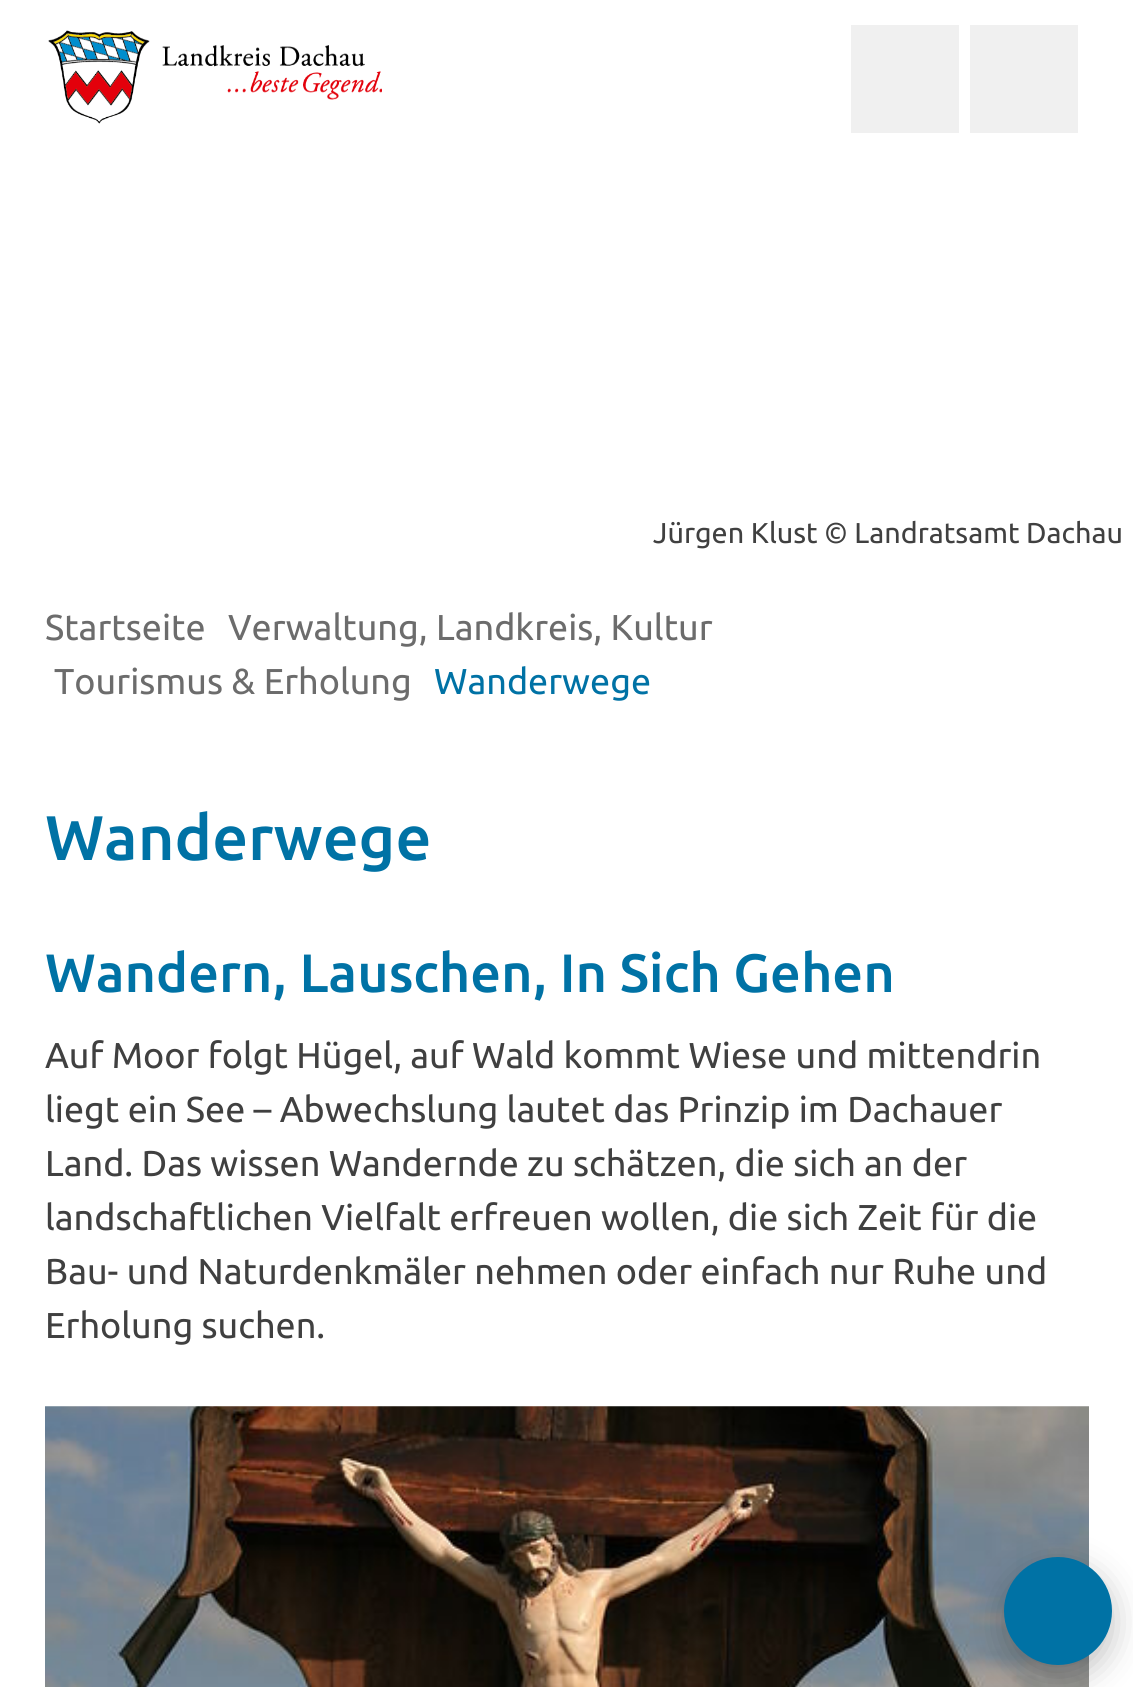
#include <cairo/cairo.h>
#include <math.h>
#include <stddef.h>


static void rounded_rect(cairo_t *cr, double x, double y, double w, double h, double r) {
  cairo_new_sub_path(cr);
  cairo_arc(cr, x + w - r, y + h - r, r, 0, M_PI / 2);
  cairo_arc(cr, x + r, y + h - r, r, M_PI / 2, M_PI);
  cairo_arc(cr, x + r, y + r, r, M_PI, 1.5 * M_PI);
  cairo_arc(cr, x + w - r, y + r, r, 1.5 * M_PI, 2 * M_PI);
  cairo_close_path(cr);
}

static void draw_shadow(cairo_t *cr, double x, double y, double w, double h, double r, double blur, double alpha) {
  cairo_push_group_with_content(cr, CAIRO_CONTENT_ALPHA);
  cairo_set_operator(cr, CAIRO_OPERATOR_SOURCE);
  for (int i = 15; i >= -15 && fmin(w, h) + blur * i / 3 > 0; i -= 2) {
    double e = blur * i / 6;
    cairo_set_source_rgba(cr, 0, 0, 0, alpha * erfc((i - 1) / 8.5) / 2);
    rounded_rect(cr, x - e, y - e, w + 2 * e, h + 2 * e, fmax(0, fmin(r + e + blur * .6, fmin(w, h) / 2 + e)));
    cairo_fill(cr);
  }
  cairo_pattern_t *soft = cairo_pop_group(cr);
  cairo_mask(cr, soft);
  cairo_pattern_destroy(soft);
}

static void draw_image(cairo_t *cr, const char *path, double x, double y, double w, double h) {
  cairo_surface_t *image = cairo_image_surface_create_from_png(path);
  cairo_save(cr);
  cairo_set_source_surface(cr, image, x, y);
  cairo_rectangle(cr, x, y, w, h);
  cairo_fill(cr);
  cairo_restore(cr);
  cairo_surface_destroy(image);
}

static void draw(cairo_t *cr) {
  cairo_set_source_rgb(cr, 1, 1, 1);
  cairo_paint(cr);
  draw_image(cr, "images/1.png", 48, 30, 334, 94);
  cairo_set_source_rgb(cr, 240 / 255.0, 240 / 255.0, 240 / 255.0);
  cairo_rectangle(cr, 851, 25, 108, 108);
  cairo_fill(cr);
  cairo_rectangle(cr, 970, 25, 108, 108);
  cairo_fill(cr);
  draw_image(cr, "images/2.png", 45, 1406, 1044, 281);
  cairo_set_source_rgb(cr, 0, 0, 0);
  draw_shadow(cr, 1004, 1568, 108, 108, 54, 17, 0.25);
  cairo_set_source_rgb(cr, 0, 114 / 255.0, 165 / 255.0);
  cairo_arc(cr, 1058, 1611, 51.5, 0, 2 * M_PI);
  cairo_fill_preserve(cr);
  cairo_set_line_width(cr, 5);
  cairo_stroke(cr);
  cairo_select_font_face(cr, "Ubuntu", CAIRO_FONT_SLANT_NORMAL, CAIRO_FONT_WEIGHT_NORMAL);
  cairo_set_font_size(cr, 28.75);
  cairo_set_source_rgb(cr, 64 / 255.0, 64 / 255.0, 64 / 255.0);
  cairo_move_to(cr, 653, 543);
  cairo_show_text(cr, "Jürgen Klust © Landratsamt Dachau");
  cairo_set_font_size(cr, 36);
  cairo_set_source_rgb(cr, 108 / 255.0, 108 / 255.0, 108 / 255.0);
  cairo_move_to(cr, 45, 640);
  cairo_show_text(cr, "Startseite");
  cairo_move_to(cr, 228, 640);
  cairo_show_text(cr, "Verwaltung, Landkreis, Kultur");
  cairo_move_to(cr, 54, 694);
  cairo_show_text(cr, "Tourismus & Erholung");
  cairo_set_source_rgb(cr, 0, 114 / 255.0, 165 / 255.0);
  cairo_move_to(cr, 434, 694);
  cairo_show_text(cr, "Wanderwege");
  cairo_select_font_face(cr, "Ubuntu Medium", CAIRO_FONT_SLANT_NORMAL, CAIRO_FONT_WEIGHT_NORMAL);
  cairo_set_font_size(cr, 63);
  cairo_move_to(cr, 45, 860);
  cairo_show_text(cr, "Wanderwege");
  cairo_set_font_size(cr, 54);
  cairo_move_to(cr, 45, 992);
  cairo_show_text(cr, "Wandern, Lauschen, In Sich Gehen");
  cairo_select_font_face(cr, "Ubuntu", CAIRO_FONT_SLANT_NORMAL, CAIRO_FONT_WEIGHT_NORMAL);
  cairo_set_font_size(cr, 36);
  cairo_set_source_rgb(cr, 64 / 255.0, 64 / 255.0, 64 / 255.0);
  cairo_move_to(cr, 45, 1068);
  cairo_show_text(cr, "Auf Moor folgt Hügel, auf Wald kommt Wiese und mittendrin");
  cairo_move_to(cr, 45, 1122);
  cairo_show_text(cr, "liegt ein See – Abwechslung lautet das Prinzip im Dachauer");
  cairo_move_to(cr, 45, 1176);
  cairo_show_text(cr, "Land. Das wissen Wandernde zu schätzen, die sich an der");
  cairo_move_to(cr, 45, 1230);
  cairo_show_text(cr, "landschaftlichen Vielfalt erfreuen wollen, die sich Zeit für die");
  cairo_move_to(cr, 45, 1284);
  cairo_show_text(cr, "Bau- und Naturdenkmäler nehmen oder einfach nur Ruhe und");
  cairo_move_to(cr, 45, 1338);
  cairo_show_text(cr, "Erholung suchen.");
}

int main(void) {
  cairo_surface_t *surface = cairo_image_surface_create(CAIRO_FORMAT_RGB24, 1133, 1687);
  cairo_t *cr = cairo_create(surface);
  cairo_font_options_t *options = cairo_font_options_create();
  cairo_font_options_set_hint_metrics(options, CAIRO_HINT_METRICS_OFF);
  cairo_font_options_set_hint_style(options, CAIRO_HINT_STYLE_NONE);
  cairo_set_font_options(cr, options);
  cairo_set_miter_limit(cr, 4);
  draw(cr);
  cairo_surface_write_to_png(surface, "out.png");
  cairo_font_options_destroy(options);
  cairo_destroy(cr);
  cairo_surface_destroy(surface);
  return 0;
}
